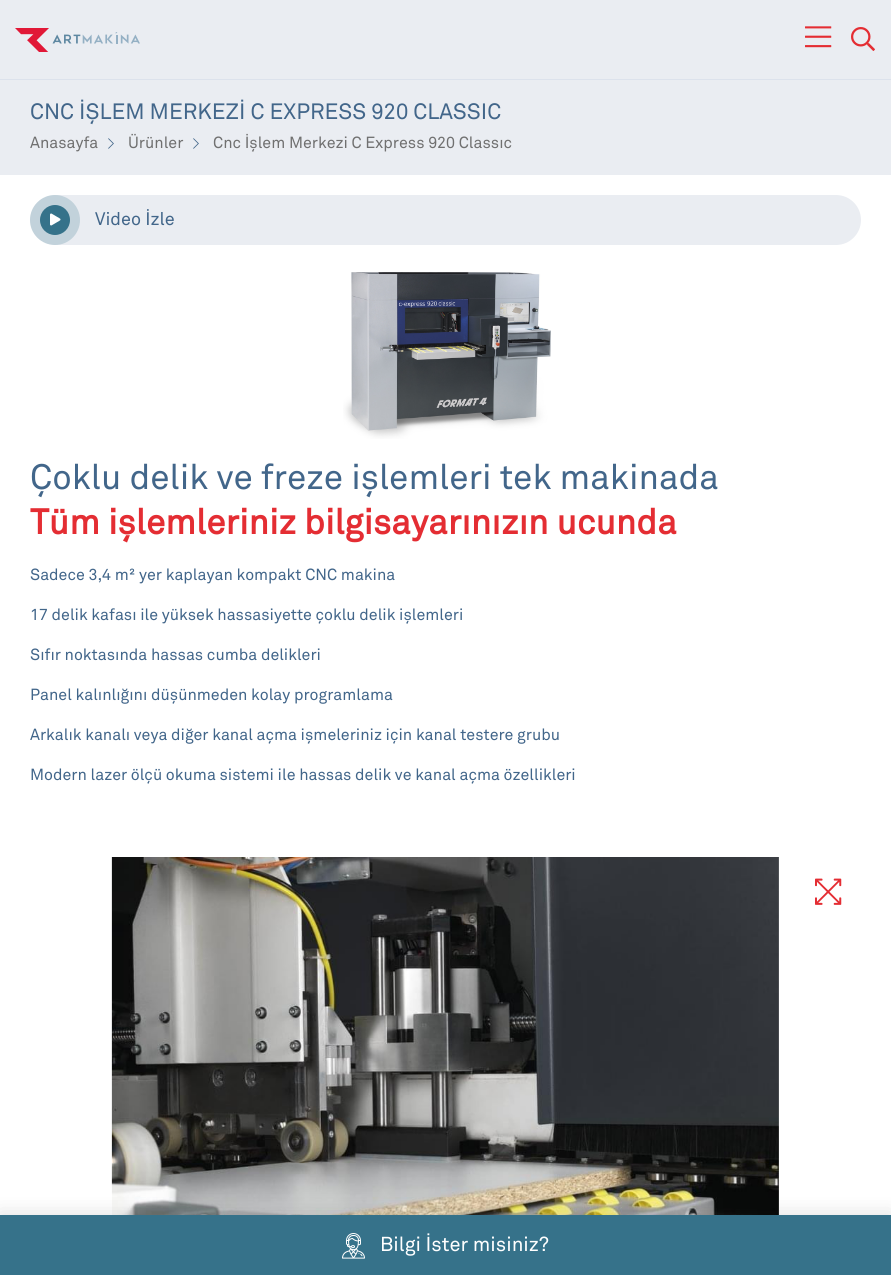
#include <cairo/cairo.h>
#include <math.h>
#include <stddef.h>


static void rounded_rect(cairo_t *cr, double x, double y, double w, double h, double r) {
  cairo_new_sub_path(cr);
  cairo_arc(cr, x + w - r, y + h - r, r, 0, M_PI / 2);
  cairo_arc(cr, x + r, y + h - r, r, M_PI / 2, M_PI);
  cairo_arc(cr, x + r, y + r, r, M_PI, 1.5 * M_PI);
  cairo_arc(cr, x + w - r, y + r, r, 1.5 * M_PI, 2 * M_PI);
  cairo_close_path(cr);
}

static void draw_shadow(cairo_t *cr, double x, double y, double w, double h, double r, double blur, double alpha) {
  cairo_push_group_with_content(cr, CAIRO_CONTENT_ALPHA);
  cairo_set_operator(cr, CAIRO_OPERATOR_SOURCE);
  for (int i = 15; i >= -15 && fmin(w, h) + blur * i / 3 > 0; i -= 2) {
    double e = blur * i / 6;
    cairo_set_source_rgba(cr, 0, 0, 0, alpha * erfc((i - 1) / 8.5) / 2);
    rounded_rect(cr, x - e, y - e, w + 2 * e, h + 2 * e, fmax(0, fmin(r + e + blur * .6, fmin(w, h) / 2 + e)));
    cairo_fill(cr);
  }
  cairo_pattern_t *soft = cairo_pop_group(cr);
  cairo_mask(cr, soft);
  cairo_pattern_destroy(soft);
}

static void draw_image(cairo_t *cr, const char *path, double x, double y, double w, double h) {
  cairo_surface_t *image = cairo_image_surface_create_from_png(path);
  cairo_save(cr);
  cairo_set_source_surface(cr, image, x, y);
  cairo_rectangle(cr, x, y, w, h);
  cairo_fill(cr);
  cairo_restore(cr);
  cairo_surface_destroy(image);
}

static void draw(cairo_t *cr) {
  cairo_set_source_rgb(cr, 234 / 255.0, 237 / 255.0, 242 / 255.0);
  cairo_paint(cr);
  cairo_set_source_rgb(cr, 220 / 255.0, 226 / 255.0, 236 / 255.0);
  cairo_rectangle(cr, 0, 79, 891, 1);
  cairo_fill(cr);
  draw_image(cr, "images/1.png", 15, 28, 125, 24);
  draw_image(cr, "images/2.png", 805, 26, 27, 22);
  draw_image(cr, "images/3.png", 851, 27, 24, 24);
  draw_image(cr, "images/4.png", 108, 138, 6, 11);
  draw_image(cr, "images/4.png", 193, 138, 6, 11);
  cairo_set_source_rgb(cr, 1, 1, 1);
  cairo_rectangle(cr, 0, 175, 891, 1040);
  cairo_fill(cr);
  cairo_set_source_rgb(cr, 234 / 255.0, 237 / 255.0, 242 / 255.0);
  rounded_rect(cr, 30, 195, 831, 50, 25);
  cairo_fill(cr);
  cairo_set_source_rgb(cr, 54 / 255.0, 114 / 255.0, 138 / 255.0);
  cairo_arc(cr, 55, 220, 15, 0, 2 * M_PI);
  cairo_fill(cr);
  cairo_set_source_rgba(cr, 54 / 255.0, 114 / 255.0, 138 / 255.0, 0.22);
  cairo_arc(cr, 55, 220, 25, 0, 2 * M_PI);
  cairo_fill(cr);
  draw_image(cr, "images/5.png", 50, 213, 11, 13);
  draw_image(cr, "images/6.png", 343, 272, 208, 167);
  draw_image(cr, "images/7.png", 111, 857, 668, 358);
  draw_image(cr, "images/8.png", 815, 878, 27, 27);
  cairo_set_source_rgb(cr, 0, 0, 0);
  draw_shadow(cr, 0, 1215, 891, 60, 0, 10, 0.14);
  cairo_set_source_rgb(cr, 54 / 255.0, 114 / 255.0, 138 / 255.0);
  cairo_rectangle(cr, 0, 1215, 891, 60);
  cairo_fill(cr);
  draw_image(cr, "images/9.png", 342, 1233, 23, 26);
  cairo_select_font_face(cr, "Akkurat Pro", CAIRO_FONT_SLANT_NORMAL, CAIRO_FONT_WEIGHT_NORMAL);
  cairo_set_font_size(cr, 22);
  cairo_set_source_rgb(cr, 66 / 255.0, 102 / 255.0, 138 / 255.0);
  cairo_move_to(cr, 30, 119);
  cairo_show_text(cr, "CNC İŞLEM MERKEZİ C EXPRESS 920 CLASSIC");
  cairo_set_font_size(cr, 16);
  cairo_set_source_rgb(cr, 112 / 255.0, 112 / 255.0, 112 / 255.0);
  cairo_move_to(cr, 30, 148);
  cairo_show_text(cr, "Anasayfa");
  cairo_move_to(cr, 128, 148);
  cairo_show_text(cr, "Ürünler");
  cairo_move_to(cr, 213, 148);
  cairo_show_text(cr, "Cnc İşlem Merkezi C Express 920 Classıc");
  cairo_set_font_size(cr, 18);
  cairo_set_source_rgb(cr, 66 / 255.0, 102 / 255.0, 138 / 255.0);
  cairo_move_to(cr, 95, 225);
  cairo_show_text(cr, "Video İzle");
  cairo_set_font_size(cr, 35);
  cairo_move_to(cr, 30, 489);
  cairo_show_text(cr, "Çoklu delik ve freze işlemleri tek makinada");
  cairo_select_font_face(cr, "Akkurat Pro", CAIRO_FONT_SLANT_NORMAL, CAIRO_FONT_WEIGHT_BOLD);
  cairo_set_source_rgb(cr, 228 / 255.0, 45 / 255.0, 51 / 255.0);
  cairo_move_to(cr, 30, 534);
  cairo_show_text(cr, "Tüm işlemleriniz bilgisayarınızın ucunda");
  cairo_select_font_face(cr, "Akkurat Pro", CAIRO_FONT_SLANT_NORMAL, CAIRO_FONT_WEIGHT_NORMAL);
  cairo_set_font_size(cr, 16);
  cairo_set_source_rgb(cr, 66 / 255.0, 102 / 255.0, 138 / 255.0);
  cairo_move_to(cr, 30, 580);
  cairo_show_text(cr, "Sadece 3,4 m² yer kaplayan kompakt CNC makina");
  cairo_move_to(cr, 30, 620);
  cairo_show_text(cr, "17 delik kafası ile yüksek hassasiyette çoklu delik işlemleri");
  cairo_move_to(cr, 30, 660);
  cairo_show_text(cr, "Sıfır noktasında hassas cumba delikleri");
  cairo_move_to(cr, 30, 700);
  cairo_show_text(cr, "Panel kalınlığını düşünmeden kolay programlama");
  cairo_move_to(cr, 30, 740);
  cairo_show_text(cr, "Arkalık kanalı veya diğer kanal açma işmeleriniz için kanal testere grubu");
  cairo_move_to(cr, 30, 780);
  cairo_show_text(cr, "Modern lazer ölçü okuma sistemi ile hassas delik ve kanal açma özellikleri");
  cairo_set_font_size(cr, 20);
  cairo_set_source_rgb(cr, 1, 1, 1);
  cairo_move_to(cr, 380, 1251);
  cairo_show_text(cr, "Bilgi İster misiniz?");
}

int main(void) {
  cairo_surface_t *surface = cairo_image_surface_create(CAIRO_FORMAT_RGB24, 891, 1275);
  cairo_t *cr = cairo_create(surface);
  cairo_font_options_t *options = cairo_font_options_create();
  cairo_font_options_set_hint_metrics(options, CAIRO_HINT_METRICS_OFF);
  cairo_font_options_set_hint_style(options, CAIRO_HINT_STYLE_NONE);
  cairo_set_font_options(cr, options);
  cairo_set_miter_limit(cr, 4);
  draw(cr);
  cairo_surface_write_to_png(surface, "out.png");
  cairo_font_options_destroy(options);
  cairo_destroy(cr);
  cairo_surface_destroy(surface);
  return 0;
}
